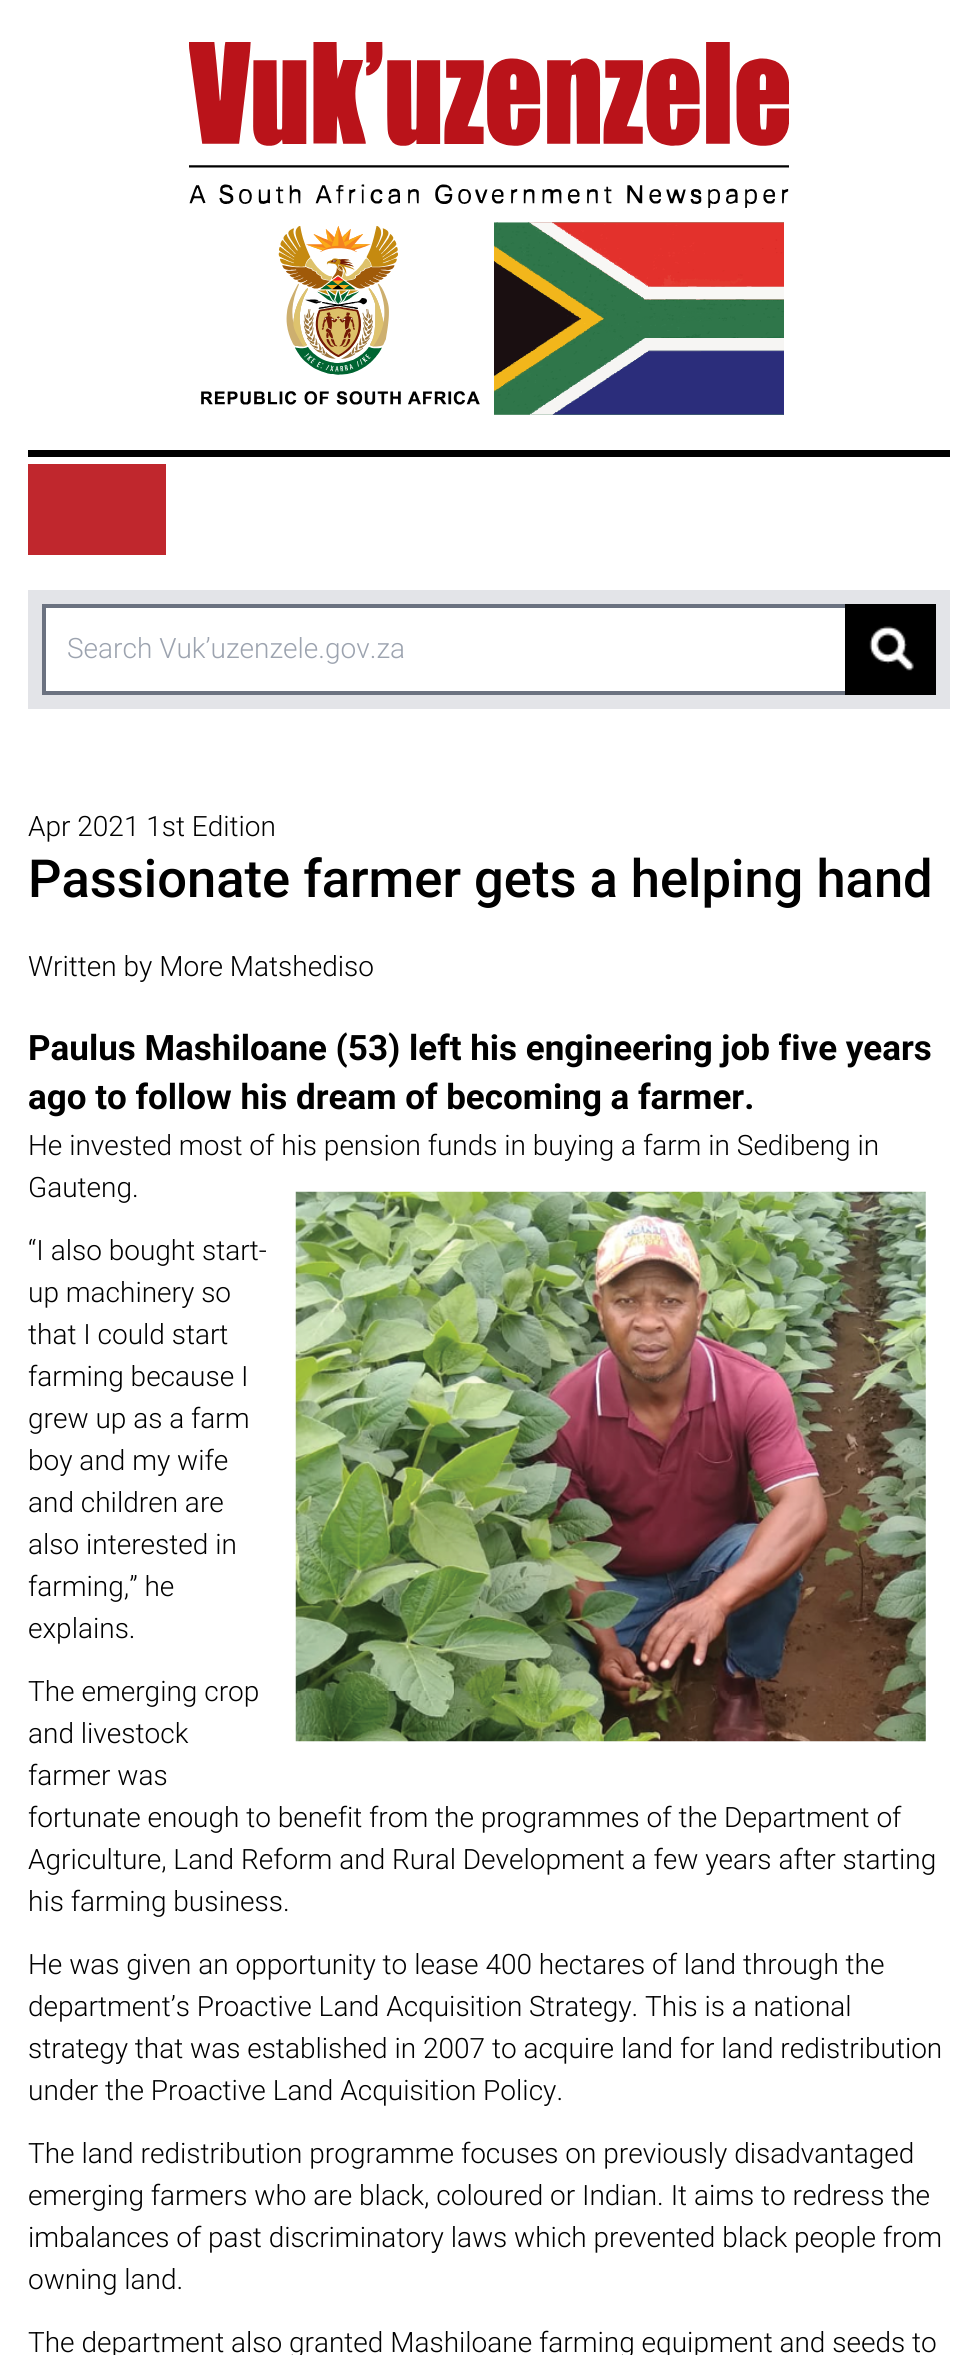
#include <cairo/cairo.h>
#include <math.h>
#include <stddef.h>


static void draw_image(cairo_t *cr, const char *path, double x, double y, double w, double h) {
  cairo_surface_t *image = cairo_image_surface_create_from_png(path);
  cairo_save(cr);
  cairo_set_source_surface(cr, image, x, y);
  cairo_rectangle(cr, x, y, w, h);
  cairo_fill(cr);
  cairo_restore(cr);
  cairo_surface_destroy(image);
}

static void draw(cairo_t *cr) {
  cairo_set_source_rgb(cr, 1, 1, 1);
  cairo_paint(cr);
  draw_image(cr, "images/1.png", 189, 42, 600, 166);
  draw_image(cr, "images/2.png", 201, 226, 279, 179);
  draw_image(cr, "images/3.png", 494, 222, 290, 193);
  cairo_set_source_rgb(cr, 0, 0, 0);
  cairo_rectangle(cr, 28, 450, 922, 7);
  cairo_fill(cr);
  cairo_set_source_rgb(cr, 192 / 255.0, 39 / 255.0, 45 / 255.0);
  cairo_rectangle(cr, 28, 464, 138, 91);
  cairo_fill(cr);
  cairo_set_source_rgb(cr, 227 / 255.0, 228 / 255.0, 232 / 255.0);
  cairo_rectangle(cr, 28, 590, 922, 119);
  cairo_fill(cr);
  cairo_set_source_rgb(cr, 1, 1, 1);
  cairo_rectangle(cr, 46, 608, 799, 83);
  cairo_fill(cr);
  cairo_rectangle(cr, 44, 606, 890, 87);
  cairo_set_source_rgb(cr, 107 / 255.0, 114 / 255.0, 128 / 255.0);
  cairo_set_line_width(cr, 4);
  cairo_stroke(cr);
  cairo_set_source_rgb(cr, 0, 0, 0);
  cairo_rectangle(cr, 845, 604, 91, 91);
  cairo_fill(cr);
  draw_image(cr, "images/4.png", 869, 626, 45, 45);
  draw_image(cr, "images/5.png", 295, 1191, 631, 551);
  cairo_select_font_face(cr, "Roboto Light", CAIRO_FONT_SLANT_NORMAL, CAIRO_FONT_WEIGHT_NORMAL);
  cairo_set_font_size(cr, 28);
  cairo_set_source_rgb(cr, 156 / 255.0, 163 / 255.0, 175 / 255.0);
  cairo_move_to(cr, 67, 658);
  cairo_show_text(cr, "Search Vuk’uzenzele.gov.za");
  cairo_set_source_rgb(cr, 0, 0, 0);
  cairo_move_to(cr, 28, 836);
  cairo_show_text(cr, "Apr 2021 1st Edition");
  cairo_select_font_face(cr, "Roboto Medium", CAIRO_FONT_SLANT_NORMAL, CAIRO_FONT_WEIGHT_NORMAL);
  cairo_set_font_size(cr, 52.5);
  cairo_move_to(cr, 28, 897);
  cairo_show_text(cr, "Passionate farmer gets a helping hand");
  cairo_select_font_face(cr, "Roboto Light", CAIRO_FONT_SLANT_NORMAL, CAIRO_FONT_WEIGHT_NORMAL);
  cairo_set_font_size(cr, 28);
  cairo_move_to(cr, 28, 976);
  cairo_show_text(cr, "Written by More Matshediso");
  cairo_select_font_face(cr, "Roboto", CAIRO_FONT_SLANT_NORMAL, CAIRO_FONT_WEIGHT_BOLD);
  cairo_set_font_size(cr, 35);
  cairo_move_to(cr, 28, 1060);
  cairo_show_text(cr, "Paulus Mashiloane (53) left his engineering job five years");
  cairo_move_to(cr, 28, 1109);
  cairo_show_text(cr, "ago to follow his dream of becoming a farmer.");
  cairo_select_font_face(cr, "Roboto Light", CAIRO_FONT_SLANT_NORMAL, CAIRO_FONT_WEIGHT_NORMAL);
  cairo_set_font_size(cr, 28);
  cairo_move_to(cr, 28, 1155);
  cairo_show_text(cr, "He invested most of his pension funds in buying a farm in Sedibeng in");
  cairo_move_to(cr, 28, 1197);
  cairo_show_text(cr, "Gauteng.");
  cairo_move_to(cr, 28, 1260);
  cairo_show_text(cr, "“I also bought start-");
  cairo_move_to(cr, 28, 1302);
  cairo_show_text(cr, "up machinery so");
  cairo_move_to(cr, 28, 1344);
  cairo_show_text(cr, "that I could start");
  cairo_move_to(cr, 28, 1386);
  cairo_show_text(cr, "farming because I");
  cairo_move_to(cr, 28, 1428);
  cairo_show_text(cr, "grew up as a farm");
  cairo_move_to(cr, 28, 1470);
  cairo_show_text(cr, "boy and my wife");
  cairo_move_to(cr, 28, 1512);
  cairo_show_text(cr, "and children are");
  cairo_move_to(cr, 28, 1554);
  cairo_show_text(cr, "also interested in");
  cairo_move_to(cr, 28, 1596);
  cairo_show_text(cr, "farming,” he");
  cairo_move_to(cr, 28, 1638);
  cairo_show_text(cr, "explains.");
  cairo_move_to(cr, 28, 1701);
  cairo_show_text(cr, "The emerging crop");
  cairo_move_to(cr, 28, 1743);
  cairo_show_text(cr, "and livestock");
  cairo_move_to(cr, 28, 1785);
  cairo_show_text(cr, "farmer was");
  cairo_move_to(cr, 28, 1827);
  cairo_show_text(cr, "fortunate enough to benefit from the programmes of the Department of");
  cairo_move_to(cr, 28, 1869);
  cairo_show_text(cr, "Agriculture, Land Reform and Rural Development a few years after starting");
  cairo_move_to(cr, 28, 1911);
  cairo_show_text(cr, "his farming business.");
  cairo_move_to(cr, 28, 1974);
  cairo_show_text(cr, "He was given an opportunity to lease 400 hectares of land through the");
  cairo_move_to(cr, 28, 2016);
  cairo_show_text(cr, "department’s Proactive Land Acquisition Strategy. This is a national");
  cairo_move_to(cr, 28, 2058);
  cairo_show_text(cr, "strategy that was established in 2007 to acquire land for land redistribution");
  cairo_move_to(cr, 28, 2100);
  cairo_show_text(cr, "under the Proactive Land Acquisition Policy.");
  cairo_move_to(cr, 28, 2163);
  cairo_show_text(cr, "The land redistribution programme focuses on previously disadvantaged");
  cairo_move_to(cr, 28, 2205);
  cairo_show_text(cr, "emerging farmers who are black, coloured or Indian. It aims to redress the");
  cairo_move_to(cr, 28, 2247);
  cairo_show_text(cr, "imbalances of past discriminatory laws which prevented black people from");
  cairo_move_to(cr, 28, 2289);
  cairo_show_text(cr, "owning land.");
  cairo_move_to(cr, 28, 2352);
  cairo_show_text(cr, "The department also granted Mashiloane farming equipment and seeds to");
}

int main(void) {
  cairo_surface_t *surface = cairo_image_surface_create(CAIRO_FORMAT_RGB24, 977, 2355);
  cairo_t *cr = cairo_create(surface);
  cairo_font_options_t *options = cairo_font_options_create();
  cairo_font_options_set_hint_metrics(options, CAIRO_HINT_METRICS_OFF);
  cairo_font_options_set_hint_style(options, CAIRO_HINT_STYLE_NONE);
  cairo_set_font_options(cr, options);
  cairo_set_miter_limit(cr, 4);
  draw(cr);
  cairo_surface_write_to_png(surface, "out.png");
  cairo_font_options_destroy(options);
  cairo_destroy(cr);
  cairo_surface_destroy(surface);
  return 0;
}
